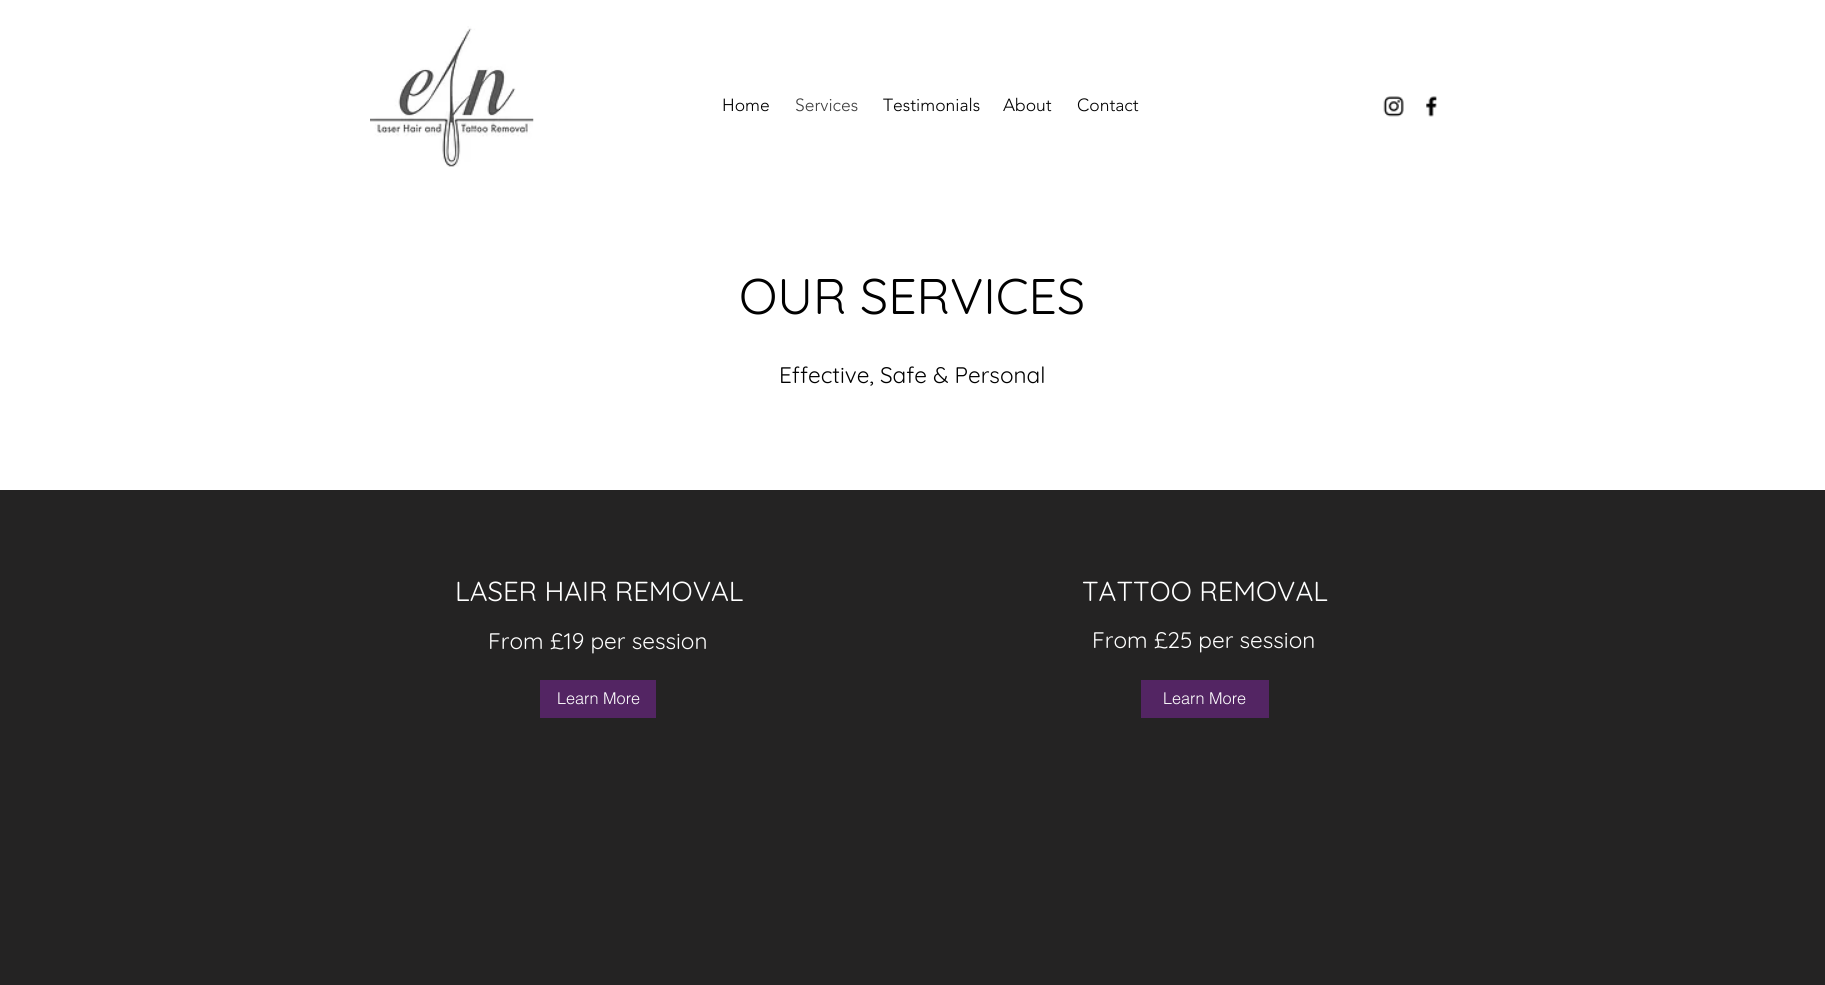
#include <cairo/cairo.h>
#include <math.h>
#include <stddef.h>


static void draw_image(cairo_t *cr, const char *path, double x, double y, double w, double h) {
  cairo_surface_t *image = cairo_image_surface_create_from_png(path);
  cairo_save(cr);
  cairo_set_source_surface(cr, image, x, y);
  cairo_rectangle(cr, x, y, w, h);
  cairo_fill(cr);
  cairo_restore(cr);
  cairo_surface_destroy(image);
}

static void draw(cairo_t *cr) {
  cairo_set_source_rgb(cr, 1, 1, 1);
  cairo_paint(cr);
  draw_image(cr, "images/1.png", 370, 26, 164, 141);
  draw_image(cr, "images/2.png", 1383, 96, 21, 21);
  draw_image(cr, "images/3.png", 1426, 96, 11, 21);
  cairo_set_source_rgb(cr, 36 / 255.0, 35 / 255.0, 35 / 255.0);
  cairo_rectangle(cr, 0, 490, 1825, 495);
  cairo_fill(cr);
  cairo_set_source_rgb(cr, 83 / 255.0, 37 / 255.0, 99 / 255.0);
  cairo_rectangle(cr, 540, 680, 116, 38);
  cairo_fill(cr);
  cairo_rectangle(cr, 1141, 680, 128, 38);
  cairo_fill(cr);
  cairo_select_font_face(cr, "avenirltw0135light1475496 Light", CAIRO_FONT_SLANT_NORMAL, CAIRO_FONT_WEIGHT_NORMAL);
  cairo_set_font_size(cr, 17.5);
  cairo_set_source_rgb(cr, 0, 0, 0);
  cairo_move_to(cr, 722, 111);
  cairo_show_text(cr, "Home");
  cairo_set_source_rgb(cr, 64 / 255.0, 64 / 255.0, 64 / 255.0);
  cairo_move_to(cr, 795, 111);
  cairo_show_text(cr, "Services");
  cairo_set_source_rgb(cr, 0, 0, 0);
  cairo_move_to(cr, 883, 111);
  cairo_show_text(cr, "Testimonials");
  cairo_move_to(cr, 1003, 111);
  cairo_show_text(cr, "About");
  cairo_move_to(cr, 1077, 111);
  cairo_show_text(cr, "Contact");
  cairo_select_font_face(cr, "Quicksand", CAIRO_FONT_SLANT_NORMAL, CAIRO_FONT_WEIGHT_NORMAL);
  cairo_set_font_size(cr, 50);
  cairo_move_to(cr, 739, 314);
  cairo_show_text(cr, "OUR SERVICES");
  cairo_set_font_size(cr, 22.5);
  cairo_move_to(cr, 779, 383);
  cairo_show_text(cr, "Effective, Safe & Personal");
  cairo_set_font_size(cr, 27.5);
  cairo_set_source_rgb(cr, 1, 1, 1);
  cairo_move_to(cr, 455, 601);
  cairo_show_text(cr, "LASER HAIR REMOVAL");
  cairo_set_font_size(cr, 22.5);
  cairo_move_to(cr, 488, 649);
  cairo_show_text(cr, "From £19 per session");
  cairo_select_font_face(cr, "helvetica Light", CAIRO_FONT_SLANT_NORMAL, CAIRO_FONT_WEIGHT_NORMAL);
  cairo_set_font_size(cr, 16.25);
  cairo_move_to(cr, 557, 704);
  cairo_show_text(cr, "Learn More");
  cairo_select_font_face(cr, "Quicksand", CAIRO_FONT_SLANT_NORMAL, CAIRO_FONT_WEIGHT_NORMAL);
  cairo_set_font_size(cr, 27.5);
  cairo_move_to(cr, 1082, 601);
  cairo_show_text(cr, "TATTOO REMOVAL");
  cairo_set_font_size(cr, 22.5);
  cairo_move_to(cr, 1092, 648);
  cairo_show_text(cr, "From £25 per session");
  cairo_select_font_face(cr, "helvetica Light", CAIRO_FONT_SLANT_NORMAL, CAIRO_FONT_WEIGHT_NORMAL);
  cairo_set_font_size(cr, 16.25);
  cairo_move_to(cr, 1163, 704);
  cairo_show_text(cr, "Learn More");
}

int main(void) {
  cairo_surface_t *surface = cairo_image_surface_create(CAIRO_FORMAT_RGB24, 1825, 985);
  cairo_t *cr = cairo_create(surface);
  cairo_font_options_t *options = cairo_font_options_create();
  cairo_font_options_set_hint_metrics(options, CAIRO_HINT_METRICS_OFF);
  cairo_font_options_set_hint_style(options, CAIRO_HINT_STYLE_NONE);
  cairo_set_font_options(cr, options);
  cairo_set_miter_limit(cr, 4);
  draw(cr);
  cairo_surface_write_to_png(surface, "out.png");
  cairo_font_options_destroy(options);
  cairo_destroy(cr);
  cairo_surface_destroy(surface);
  return 0;
}
